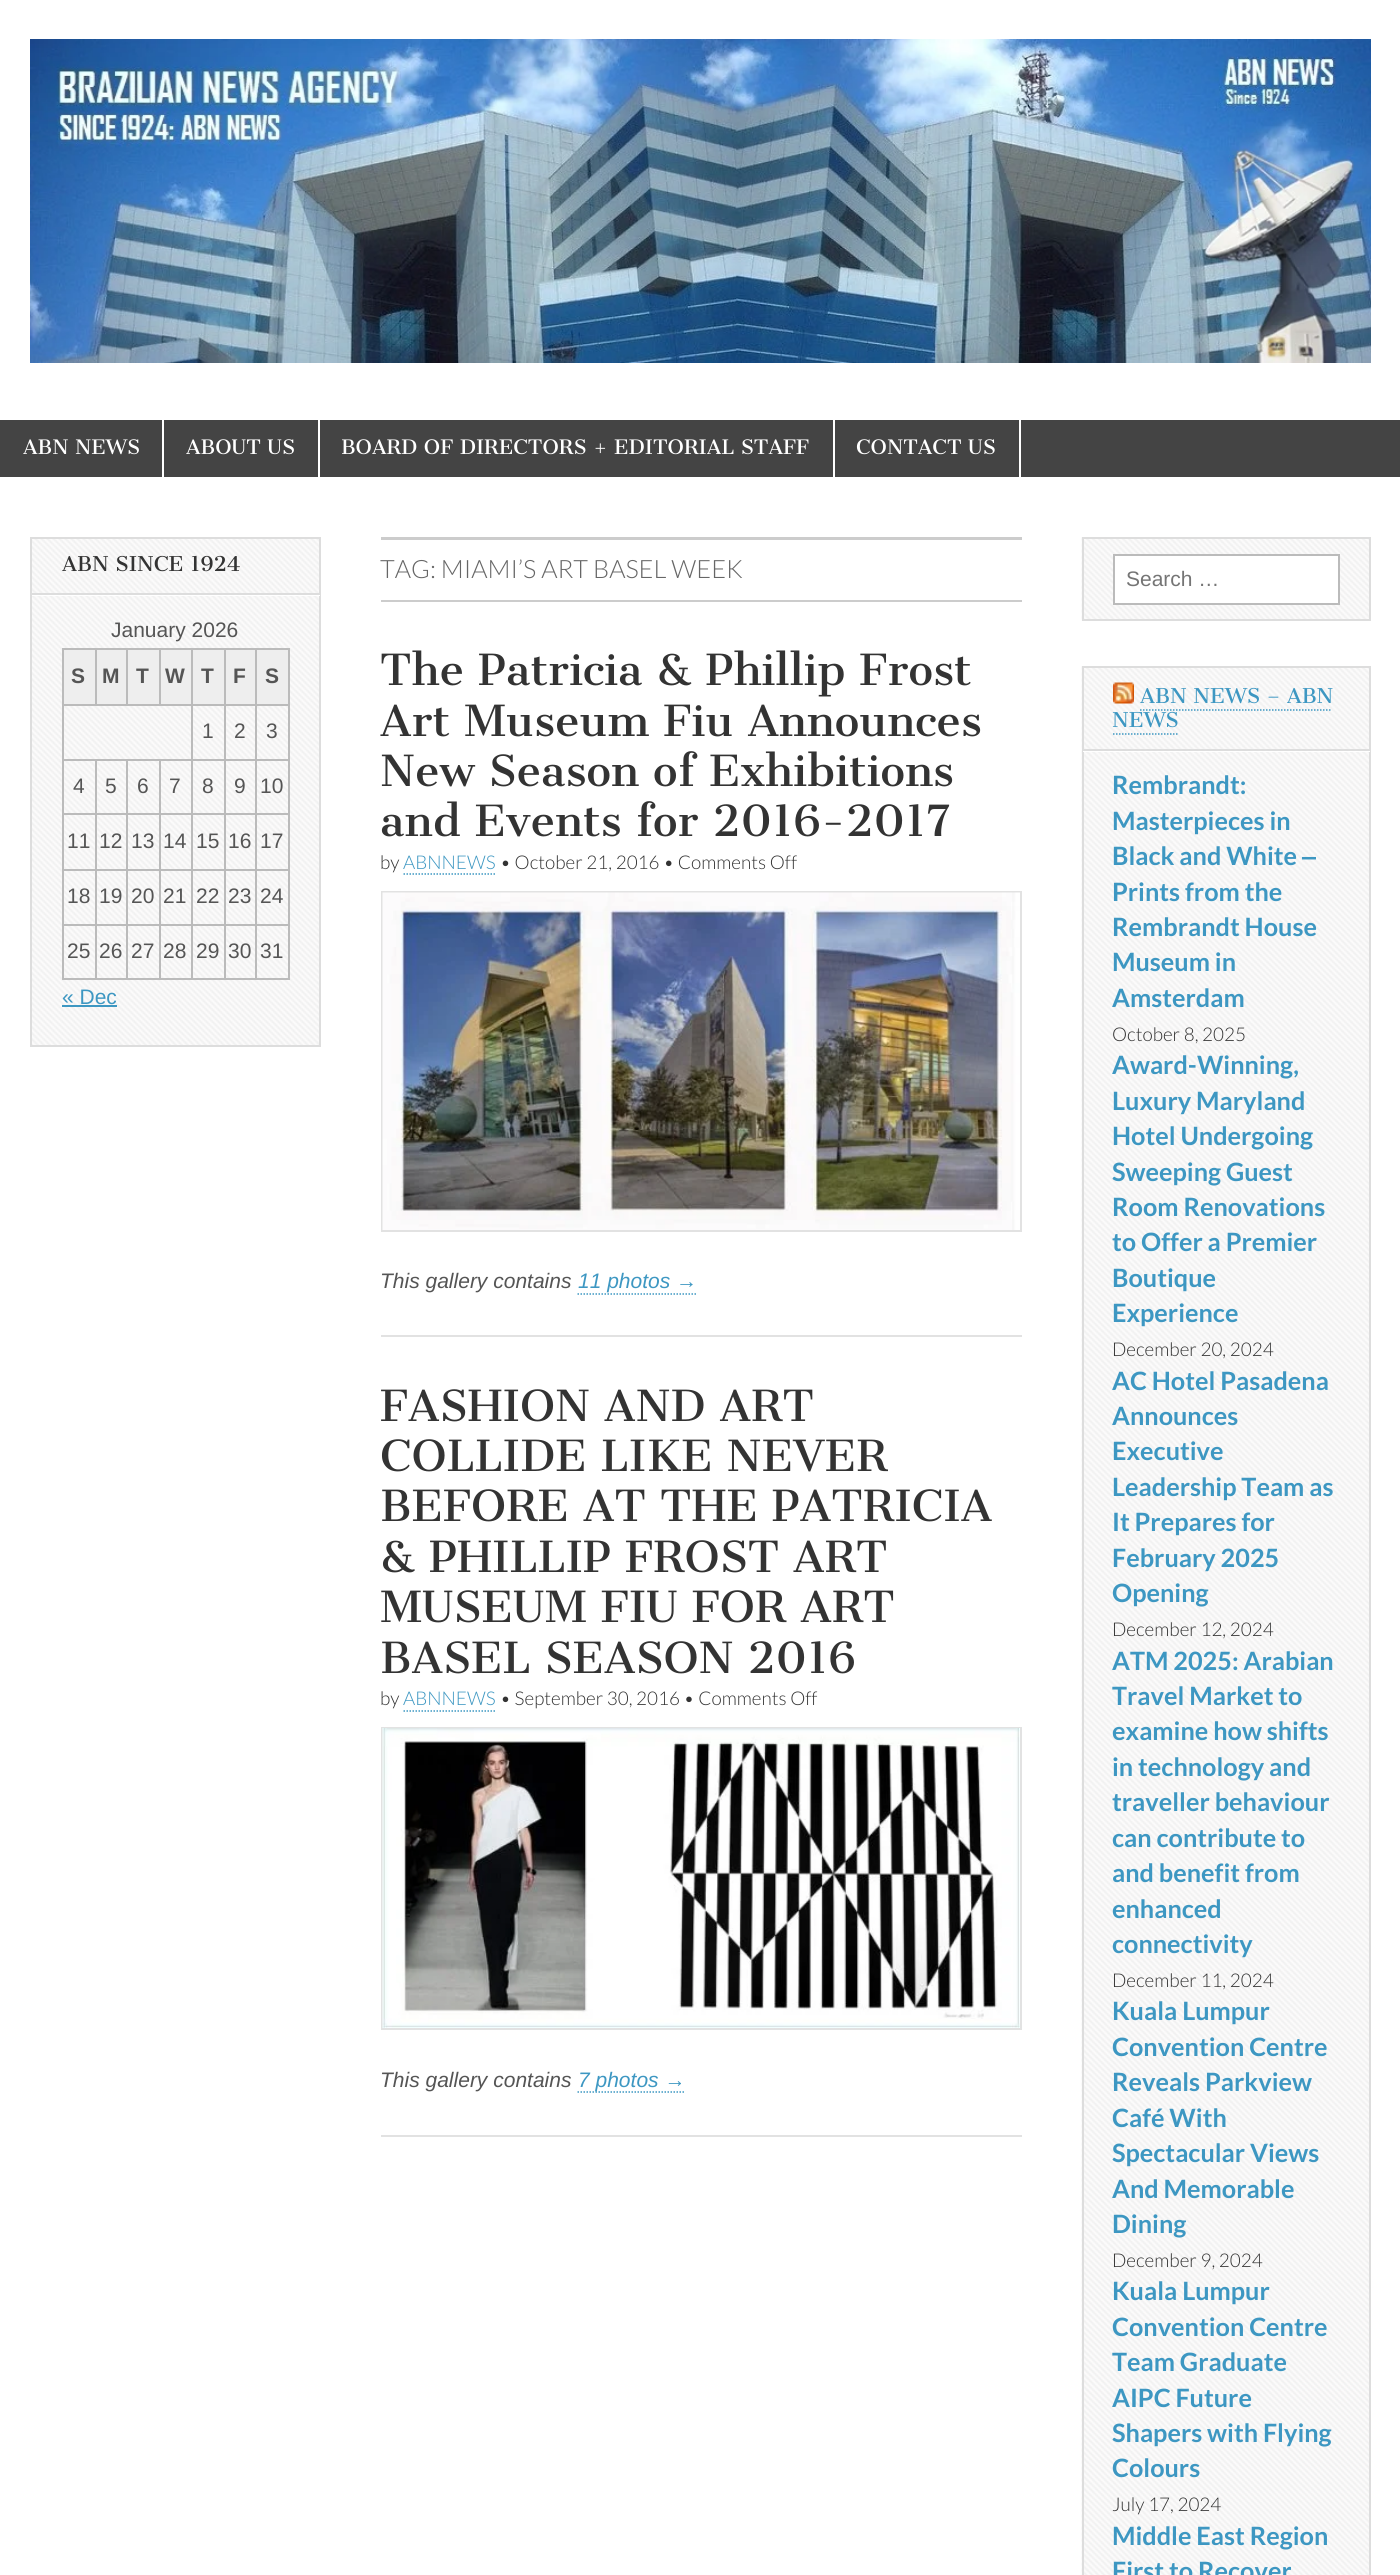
#include <cairo/cairo.h>
#include <math.h>
#include <stddef.h>


static void draw_image(cairo_t *cr, const char *path, double x, double y, double w, double h) {
  cairo_surface_t *image = cairo_image_surface_create_from_png(path);
  cairo_save(cr);
  cairo_set_source_surface(cr, image, x, y);
  cairo_rectangle(cr, x, y, w, h);
  cairo_fill(cr);
  cairo_restore(cr);
  cairo_surface_destroy(image);
}

static void draw(cairo_t *cr) {
  cairo_set_source_rgb(cr, 1, 1, 1);
  cairo_paint(cr);
  draw_image(cr, "images/1.png", 30, 39, 1341, 324);
  cairo_set_source_rgb(cr, 68 / 255.0, 68 / 255.0, 68 / 255.0);
  cairo_rectangle(cr, 0, 420, 1400, 57);
  cairo_fill(cr);
  cairo_set_source_rgb(cr, 1, 1, 1);
  cairo_rectangle(cr, 162, 420, 2, 57);
  cairo_fill(cr);
  cairo_rectangle(cr, 318, 420, 2, 57);
  cairo_fill(cr);
  cairo_rectangle(cr, 833, 420, 2, 57);
  cairo_fill(cr);
  cairo_rectangle(cr, 1019, 420, 2, 57);
  cairo_fill(cr);
  draw_image(cr, "images/2.png", 32, 539, 287, 506);
  cairo_rectangle(cr, 31, 538, 289, 508);
  cairo_set_source_rgb(cr, 221 / 255.0, 221 / 255.0, 221 / 255.0);
  cairo_stroke(cr);
  cairo_set_source_rgb(cr, 1, 1, 1);
  cairo_new_path(cr);
  cairo_move_to(cr, 32, 594);
  cairo_line_to(cr, 32, 596);
  cairo_line_to(cr, 320, 596);
  cairo_line_to(cr, 320, 540);
  cairo_line_to(cr, 320, 594);
  cairo_close_path(cr);
  cairo_fill(cr);
  cairo_set_source_rgb(cr, 221 / 255.0, 221 / 255.0, 221 / 255.0);
  cairo_rectangle(cr, 32, 593, 288, 2);
  cairo_fill(cr);
  cairo_set_source_rgb(cr, 238 / 255.0, 238 / 255.0, 238 / 255.0);
  cairo_rectangle(cr, 64, 650, 31, 54);
  cairo_fill(cr);
  cairo_set_source_rgb(cr, 187 / 255.0, 187 / 255.0, 187 / 255.0);
  cairo_rectangle(cr, 255, 648, 35, 2);
  cairo_fill(cr);
  cairo_rectangle(cr, 255, 704, 35, 2);
  cairo_fill(cr);
  cairo_rectangle(cr, 255, 759, 35, 2);
  cairo_fill(cr);
  cairo_rectangle(cr, 255, 813, 35, 2);
  cairo_fill(cr);
  cairo_rectangle(cr, 255, 869, 35, 2);
  cairo_fill(cr);
  cairo_rectangle(cr, 255, 924, 35, 2);
  cairo_fill(cr);
  cairo_rectangle(cr, 288, 924, 2, 56);
  cairo_fill(cr);
  cairo_rectangle(cr, 255, 978, 35, 2);
  cairo_fill(cr);
  cairo_rectangle(cr, 255, 924, 2, 56);
  cairo_fill(cr);
  cairo_rectangle(cr, 224, 924, 33, 2);
  cairo_fill(cr);
  cairo_rectangle(cr, 255, 869, 2, 57);
  cairo_fill(cr);
  cairo_rectangle(cr, 224, 869, 33, 2);
  cairo_fill(cr);
  cairo_rectangle(cr, 255, 813, 2, 57);
  cairo_fill(cr);
  cairo_rectangle(cr, 224, 813, 33, 2);
  cairo_fill(cr);
  cairo_rectangle(cr, 255, 759, 2, 56);
  cairo_fill(cr);
  cairo_rectangle(cr, 224, 759, 33, 2);
  cairo_fill(cr);
  cairo_rectangle(cr, 255, 704, 2, 57);
  cairo_fill(cr);
  cairo_rectangle(cr, 224, 704, 33, 2);
  cairo_fill(cr);
  cairo_rectangle(cr, 255, 648, 2, 57);
  cairo_fill(cr);
  cairo_rectangle(cr, 224, 648, 33, 2);
  cairo_fill(cr);
  cairo_rectangle(cr, 224, 978, 33, 2);
  cairo_fill(cr);
  cairo_rectangle(cr, 224, 924, 2, 56);
  cairo_fill(cr);
  cairo_rectangle(cr, 191, 924, 34, 2);
  cairo_fill(cr);
  cairo_rectangle(cr, 224, 869, 2, 57);
  cairo_fill(cr);
  cairo_rectangle(cr, 191, 869, 34, 2);
  cairo_fill(cr);
  cairo_rectangle(cr, 224, 813, 2, 57);
  cairo_fill(cr);
  cairo_rectangle(cr, 191, 813, 34, 2);
  cairo_fill(cr);
  cairo_rectangle(cr, 224, 759, 2, 56);
  cairo_fill(cr);
  cairo_rectangle(cr, 191, 759, 34, 2);
  cairo_fill(cr);
  cairo_rectangle(cr, 224, 704, 2, 57);
  cairo_fill(cr);
  cairo_rectangle(cr, 191, 704, 34, 2);
  cairo_fill(cr);
  cairo_rectangle(cr, 224, 648, 2, 57);
  cairo_fill(cr);
  cairo_rectangle(cr, 191, 648, 34, 2);
  cairo_fill(cr);
  cairo_rectangle(cr, 191, 978, 34, 2);
  cairo_fill(cr);
  cairo_rectangle(cr, 191, 924, 2, 56);
  cairo_fill(cr);
  cairo_rectangle(cr, 159, 924, 33, 2);
  cairo_fill(cr);
  cairo_rectangle(cr, 191, 869, 2, 57);
  cairo_fill(cr);
  cairo_rectangle(cr, 159, 869, 33, 2);
  cairo_fill(cr);
  cairo_rectangle(cr, 191, 813, 2, 57);
  cairo_fill(cr);
  cairo_rectangle(cr, 159, 813, 33, 2);
  cairo_fill(cr);
  cairo_rectangle(cr, 191, 759, 2, 56);
  cairo_fill(cr);
  cairo_rectangle(cr, 159, 759, 33, 2);
  cairo_fill(cr);
  cairo_rectangle(cr, 191, 704, 2, 57);
  cairo_fill(cr);
  cairo_rectangle(cr, 62, 704, 130, 2);
  cairo_fill(cr);
  cairo_rectangle(cr, 191, 648, 2, 57);
  cairo_fill(cr);
  cairo_rectangle(cr, 159, 648, 33, 2);
  cairo_fill(cr);
  cairo_rectangle(cr, 159, 648, 2, 57);
  cairo_fill(cr);
  cairo_rectangle(cr, 126, 648, 35, 2);
  cairo_fill(cr);
  cairo_rectangle(cr, 126, 648, 2, 57);
  cairo_fill(cr);
  cairo_rectangle(cr, 95, 648, 33, 2);
  cairo_fill(cr);
  cairo_rectangle(cr, 95, 648, 2, 57);
  cairo_fill(cr);
  cairo_rectangle(cr, 62, 648, 34, 2);
  cairo_fill(cr);
  cairo_rectangle(cr, 159, 978, 33, 2);
  cairo_fill(cr);
  cairo_rectangle(cr, 159, 924, 2, 56);
  cairo_fill(cr);
  cairo_rectangle(cr, 126, 924, 35, 2);
  cairo_fill(cr);
  cairo_rectangle(cr, 159, 869, 2, 57);
  cairo_fill(cr);
  cairo_rectangle(cr, 126, 869, 35, 2);
  cairo_fill(cr);
  cairo_rectangle(cr, 159, 813, 2, 57);
  cairo_fill(cr);
  cairo_rectangle(cr, 126, 813, 35, 2);
  cairo_fill(cr);
  cairo_rectangle(cr, 159, 759, 2, 56);
  cairo_fill(cr);
  cairo_rectangle(cr, 126, 759, 35, 2);
  cairo_fill(cr);
  cairo_rectangle(cr, 126, 978, 35, 2);
  cairo_fill(cr);
  cairo_rectangle(cr, 126, 924, 2, 56);
  cairo_fill(cr);
  cairo_rectangle(cr, 95, 924, 33, 2);
  cairo_fill(cr);
  cairo_rectangle(cr, 126, 869, 2, 57);
  cairo_fill(cr);
  cairo_rectangle(cr, 95, 869, 33, 2);
  cairo_fill(cr);
  cairo_rectangle(cr, 126, 813, 2, 57);
  cairo_fill(cr);
  cairo_rectangle(cr, 95, 813, 33, 2);
  cairo_fill(cr);
  cairo_rectangle(cr, 126, 759, 2, 56);
  cairo_fill(cr);
  cairo_rectangle(cr, 95, 759, 33, 2);
  cairo_fill(cr);
  cairo_rectangle(cr, 95, 978, 33, 2);
  cairo_fill(cr);
  cairo_rectangle(cr, 95, 924, 2, 56);
  cairo_fill(cr);
  cairo_rectangle(cr, 62, 924, 34, 2);
  cairo_fill(cr);
  cairo_rectangle(cr, 95, 869, 2, 57);
  cairo_fill(cr);
  cairo_rectangle(cr, 62, 869, 34, 2);
  cairo_fill(cr);
  cairo_rectangle(cr, 95, 813, 2, 57);
  cairo_fill(cr);
  cairo_rectangle(cr, 62, 813, 34, 2);
  cairo_fill(cr);
  cairo_rectangle(cr, 95, 759, 2, 56);
  cairo_fill(cr);
  cairo_rectangle(cr, 62, 759, 34, 2);
  cairo_fill(cr);
  cairo_rectangle(cr, 62, 978, 34, 2);
  cairo_fill(cr);
  cairo_rectangle(cr, 62, 924, 2, 56);
  cairo_fill(cr);
  cairo_rectangle(cr, 62, 869, 2, 57);
  cairo_fill(cr);
  cairo_rectangle(cr, 62, 813, 2, 57);
  cairo_fill(cr);
  cairo_rectangle(cr, 62, 759, 2, 56);
  cairo_fill(cr);
  cairo_rectangle(cr, 62, 704, 2, 57);
  cairo_fill(cr);
  cairo_rectangle(cr, 62, 648, 2, 57);
  cairo_fill(cr);
  cairo_set_source_rgb(cr, 238 / 255.0, 238 / 255.0, 238 / 255.0);
  cairo_rectangle(cr, 97, 650, 29, 54);
  cairo_fill(cr);
  cairo_rectangle(cr, 128, 650, 31, 54);
  cairo_fill(cr);
  cairo_rectangle(cr, 161, 650, 30, 54);
  cairo_fill(cr);
  cairo_rectangle(cr, 193, 650, 31, 54);
  cairo_fill(cr);
  cairo_rectangle(cr, 226, 650, 29, 54);
  cairo_fill(cr);
  cairo_rectangle(cr, 257, 650, 31, 54);
  cairo_fill(cr);
  cairo_set_source_rgb(cr, 187 / 255.0, 187 / 255.0, 187 / 255.0);
  cairo_rectangle(cr, 288, 869, 2, 57);
  cairo_fill(cr);
  cairo_rectangle(cr, 288, 813, 2, 57);
  cairo_fill(cr);
  cairo_rectangle(cr, 288, 759, 2, 56);
  cairo_fill(cr);
  cairo_rectangle(cr, 288, 704, 2, 57);
  cairo_fill(cr);
  cairo_rectangle(cr, 288, 648, 2, 57);
  cairo_fill(cr);
  cairo_set_source_rgb(cr, 61 / 255.0, 151 / 255.0, 194 / 255.0);
  cairo_rectangle(cr, 62, 1005, 55, 2);
  cairo_fill(cr);
  cairo_set_source_rgb(cr, 204 / 255.0, 204 / 255.0, 204 / 255.0);
  cairo_rectangle(cr, 381, 537, 641, 3);
  cairo_fill(cr);
  cairo_rectangle(cr, 381, 600, 641, 2);
  cairo_fill(cr);
  cairo_new_path(cr);
  cairo_move_to(cr, 403.5, 874);
  cairo_line_to(cr, 496.5, 874);
  cairo_set_source_rgb(cr, 61 / 255.0, 151 / 255.0, 194 / 255.0);
  cairo_set_line_width(cr, 1.5);
  cairo_set_dash(cr, (double[]){1.5, 1.5}, 2, 0);
  cairo_stroke(cr);
  cairo_set_source_rgb(cr, 226 / 255.0, 226 / 255.0, 226 / 255.0);
  cairo_rectangle(cr, 381, 1335, 641, 2);
  cairo_fill(cr);
  cairo_rectangle(cr, 382, 892, 639, 339);
  cairo_set_line_width(cr, 2);
  cairo_set_dash(cr, NULL, 0, 0);
  cairo_stroke(cr);
  draw_image(cr, "images/3.png", 382, 892, 638, 338);
  cairo_new_path(cr);
  cairo_move_to(cr, 577.5, 1294);
  cairo_line_to(cr, 696, 1294);
  cairo_set_source_rgb(cr, 61 / 255.0, 151 / 255.0, 194 / 255.0);
  cairo_set_line_width(cr, 1.5);
  cairo_set_dash(cr, (double[]){1.5, 1.5}, 2, 0);
  cairo_stroke(cr);
  cairo_new_path(cr);
  cairo_move_to(cr, 403.5, 1711);
  cairo_line_to(cr, 496.5, 1711);
  cairo_stroke(cr);
  cairo_set_source_rgb(cr, 226 / 255.0, 226 / 255.0, 226 / 255.0);
  cairo_rectangle(cr, 381, 2135, 641, 2);
  cairo_fill(cr);
  cairo_rectangle(cr, 382, 1728, 639, 301);
  cairo_set_line_width(cr, 2);
  cairo_set_dash(cr, NULL, 0, 0);
  cairo_stroke(cr);
  draw_image(cr, "images/4.png", 382, 1728, 638, 300);
  cairo_new_path(cr);
  cairo_move_to(cr, 577.5, 2092);
  cairo_line_to(cr, 685.5, 2092);
  cairo_set_source_rgb(cr, 61 / 255.0, 151 / 255.0, 194 / 255.0);
  cairo_set_line_width(cr, 1.5);
  cairo_set_dash(cr, (double[]){1.5, 1.5}, 2, 0);
  cairo_stroke(cr);
  draw_image(cr, "images/5.png", 1081, 537, 288, 84);
  cairo_rectangle(cr, 1083, 538, 287, 82);
  cairo_set_source_rgb(cr, 221 / 255.0, 221 / 255.0, 221 / 255.0);
  cairo_set_line_width(cr, 2);
  cairo_set_dash(cr, NULL, 0, 0);
  cairo_stroke(cr);
  cairo_set_source_rgb(cr, 1, 1, 1);
  cairo_rectangle(cr, 1114, 555, 225, 49);
  cairo_fill_preserve(cr);
  cairo_set_source_rgb(cr, 187 / 255.0, 187 / 255.0, 187 / 255.0);
  cairo_stroke(cr);
  draw_image(cr, "images/6.png", 1081, 666, 288, 1909);
  cairo_rectangle(cr, 1083, 667, 287, 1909);
  cairo_set_source_rgb(cr, 221 / 255.0, 221 / 255.0, 221 / 255.0);
  cairo_stroke(cr);
  cairo_set_source_rgb(cr, 1, 1, 1);
  cairo_new_path(cr);
  cairo_move_to(cr, 1083, 750);
  cairo_line_to(cr, 1083, 752);
  cairo_line_to(cr, 1370, 752);
  cairo_line_to(cr, 1370, 669);
  cairo_line_to(cr, 1370, 750);
  cairo_close_path(cr);
  cairo_fill(cr);
  cairo_set_source_rgb(cr, 221 / 255.0, 221 / 255.0, 221 / 255.0);
  cairo_rectangle(cr, 1083, 749, 287, 2);
  cairo_fill(cr);
  draw_image(cr, "images/7.png", 1113, 682, 21, 22);
  cairo_new_path(cr);
  cairo_move_to(cr, 1140, 710);
  cairo_line_to(cr, 1332, 710);
  cairo_set_source_rgb(cr, 61 / 255.0, 151 / 255.0, 194 / 255.0);
  cairo_set_line_width(cr, 1.5);
  cairo_set_dash(cr, (double[]){1.5, 1.5}, 2, 0);
  cairo_stroke(cr);
  cairo_new_path(cr);
  cairo_move_to(cr, 1113, 734);
  cairo_line_to(cr, 1179, 734);
  cairo_stroke(cr);
  cairo_select_font_face(cr, "Cantata One", CAIRO_FONT_SLANT_NORMAL, CAIRO_FONT_WEIGHT_NORMAL);
  cairo_set_font_size(cr, 19.5);
  cairo_set_source_rgb(cr, 1, 1, 1);
  cairo_move_to(cr, 23, 454);
  cairo_show_text(cr, "ABN NEWS");
  cairo_move_to(cr, 186, 454);
  cairo_show_text(cr, "ABOUT US");
  cairo_move_to(cr, 341, 454);
  cairo_show_text(cr, "BOARD OF DIRECTORS + EDITORIAL STAFF");
  cairo_move_to(cr, 856, 454);
  cairo_show_text(cr, "CONTACT US");
  cairo_set_font_size(cr, 20);
  cairo_set_source_rgb(cr, 51 / 255.0, 51 / 255.0, 51 / 255.0);
  cairo_move_to(cr, 62, 571);
  cairo_show_text(cr, "ABN SINCE 1924");
  cairo_select_font_face(cr, "Liberation Sans", CAIRO_FONT_SLANT_NORMAL, CAIRO_FONT_WEIGHT_NORMAL);
  cairo_set_font_size(cr, 21);
  cairo_set_source_rgb(cr, 85 / 255.0, 85 / 255.0, 85 / 255.0);
  cairo_move_to(cr, 111, 637);
  cairo_show_text(cr, "January 2026");
  cairo_select_font_face(cr, "Liberation Sans", CAIRO_FONT_SLANT_NORMAL, CAIRO_FONT_WEIGHT_BOLD);
  cairo_move_to(cr, 71, 683);
  cairo_show_text(cr, "S");
  cairo_move_to(cr, 102, 683);
  cairo_show_text(cr, "M");
  cairo_move_to(cr, 136, 683);
  cairo_show_text(cr, "T");
  cairo_move_to(cr, 165, 683);
  cairo_show_text(cr, "W");
  cairo_move_to(cr, 201, 683);
  cairo_show_text(cr, "T");
  cairo_move_to(cr, 233, 683);
  cairo_show_text(cr, "F");
  cairo_move_to(cr, 265, 683);
  cairo_show_text(cr, "S");
  cairo_select_font_face(cr, "Liberation Sans", CAIRO_FONT_SLANT_NORMAL, CAIRO_FONT_WEIGHT_NORMAL);
  cairo_move_to(cr, 202, 738);
  cairo_show_text(cr, "1");
  cairo_move_to(cr, 234, 738);
  cairo_show_text(cr, "2");
  cairo_move_to(cr, 266, 738);
  cairo_show_text(cr, "3");
  cairo_move_to(cr, 73, 793);
  cairo_show_text(cr, "4");
  cairo_move_to(cr, 105, 793);
  cairo_show_text(cr, "5");
  cairo_move_to(cr, 137, 793);
  cairo_show_text(cr, "6");
  cairo_move_to(cr, 169, 793);
  cairo_show_text(cr, "7");
  cairo_move_to(cr, 202, 793);
  cairo_show_text(cr, "8");
  cairo_move_to(cr, 234, 793);
  cairo_show_text(cr, "9");
  cairo_move_to(cr, 260, 793);
  cairo_show_text(cr, "10");
  cairo_move_to(cr, 67, 848);
  cairo_show_text(cr, "11");
  cairo_move_to(cr, 99, 848);
  cairo_show_text(cr, "12");
  cairo_move_to(cr, 131, 848);
  cairo_show_text(cr, "13");
  cairo_move_to(cr, 163, 848);
  cairo_show_text(cr, "14");
  cairo_move_to(cr, 196, 848);
  cairo_show_text(cr, "15");
  cairo_move_to(cr, 228, 848);
  cairo_show_text(cr, "16");
  cairo_move_to(cr, 260, 848);
  cairo_show_text(cr, "17");
  cairo_move_to(cr, 67, 903);
  cairo_show_text(cr, "18");
  cairo_move_to(cr, 99, 903);
  cairo_show_text(cr, "19");
  cairo_move_to(cr, 131, 903);
  cairo_show_text(cr, "20");
  cairo_move_to(cr, 163, 903);
  cairo_show_text(cr, "21");
  cairo_move_to(cr, 196, 903);
  cairo_show_text(cr, "22");
  cairo_move_to(cr, 228, 903);
  cairo_show_text(cr, "23");
  cairo_move_to(cr, 260, 903);
  cairo_show_text(cr, "24");
  cairo_move_to(cr, 67, 958);
  cairo_show_text(cr, "25");
  cairo_move_to(cr, 99, 958);
  cairo_show_text(cr, "26");
  cairo_move_to(cr, 131, 958);
  cairo_show_text(cr, "27");
  cairo_move_to(cr, 163, 958);
  cairo_show_text(cr, "28");
  cairo_move_to(cr, 196, 958);
  cairo_show_text(cr, "29");
  cairo_move_to(cr, 228, 958);
  cairo_show_text(cr, "30");
  cairo_move_to(cr, 260, 958);
  cairo_show_text(cr, "31");
  cairo_set_source_rgb(cr, 61 / 255.0, 151 / 255.0, 194 / 255.0);
  cairo_move_to(cr, 62, 1004);
  cairo_show_text(cr, "« Dec");
  cairo_select_font_face(cr, "Lato Light", CAIRO_FONT_SLANT_NORMAL, CAIRO_FONT_WEIGHT_NORMAL);
  cairo_set_font_size(cr, 25.25);
  cairo_set_source_rgb(cr, 102 / 255.0, 102 / 255.0, 102 / 255.0);
  cairo_move_to(cr, 380, 578);
  cairo_show_text(cr, "TAG: MIAMI’S ART BASEL WEEK");
  cairo_select_font_face(cr, "Cantata One", CAIRO_FONT_SLANT_NORMAL, CAIRO_FONT_WEIGHT_NORMAL);
  cairo_set_font_size(cr, 42);
  cairo_set_source_rgb(cr, 51 / 255.0, 51 / 255.0, 51 / 255.0);
  cairo_move_to(cr, 380, 685);
  cairo_show_text(cr, "The Patricia & Phillip Frost");
  cairo_move_to(cr, 380, 736);
  cairo_show_text(cr, "Art Museum Fiu Announces");
  cairo_move_to(cr, 380, 786);
  cairo_show_text(cr, "New Season of Exhibitions");
  cairo_move_to(cr, 380, 836);
  cairo_show_text(cr, "and Events for 2016-2017");
  cairo_select_font_face(cr, "Lato Light", CAIRO_FONT_SLANT_NORMAL, CAIRO_FONT_WEIGHT_NORMAL);
  cairo_set_font_size(cr, 18.9);
  cairo_move_to(cr, 380, 869);
  cairo_show_text(cr, "by");
  cairo_set_source_rgb(cr, 61 / 255.0, 151 / 255.0, 194 / 255.0);
  cairo_move_to(cr, 403, 869);
  cairo_show_text(cr, "ABNNEWS");
  cairo_set_source_rgb(cr, 51 / 255.0, 51 / 255.0, 51 / 255.0);
  cairo_move_to(cr, 500, 869);
  cairo_show_text(cr, "• October 21, 2016 • Comments Off");
  cairo_select_font_face(cr, "Liberation Sans", CAIRO_FONT_SLANT_ITALIC, CAIRO_FONT_WEIGHT_NORMAL);
  cairo_set_font_size(cr, 21);
  cairo_set_source_rgb(cr, 85 / 255.0, 85 / 255.0, 85 / 255.0);
  cairo_move_to(cr, 380, 1288);
  cairo_show_text(cr, "This gallery contains");
  cairo_set_source_rgb(cr, 61 / 255.0, 151 / 255.0, 194 / 255.0);
  cairo_move_to(cr, 578, 1288);
  cairo_show_text(cr, "11 photos →");
  cairo_select_font_face(cr, "Cantata One", CAIRO_FONT_SLANT_NORMAL, CAIRO_FONT_WEIGHT_NORMAL);
  cairo_set_font_size(cr, 42);
  cairo_set_source_rgb(cr, 51 / 255.0, 51 / 255.0, 51 / 255.0);
  cairo_move_to(cr, 380, 1421);
  cairo_show_text(cr, "FASHION AND ART");
  cairo_move_to(cr, 380, 1471);
  cairo_show_text(cr, "COLLIDE LIKE NEVER");
  cairo_move_to(cr, 380, 1521);
  cairo_show_text(cr, "BEFORE AT THE PATRICIA");
  cairo_move_to(cr, 380, 1572);
  cairo_show_text(cr, "& PHILLIP FROST ART");
  cairo_move_to(cr, 380, 1622);
  cairo_show_text(cr, "MUSEUM FIU FOR ART");
  cairo_move_to(cr, 380, 1673);
  cairo_show_text(cr, "BASEL SEASON 2016");
  cairo_select_font_face(cr, "Lato Light", CAIRO_FONT_SLANT_NORMAL, CAIRO_FONT_WEIGHT_NORMAL);
  cairo_set_font_size(cr, 18.9);
  cairo_move_to(cr, 380, 1705);
  cairo_show_text(cr, "by");
  cairo_set_source_rgb(cr, 61 / 255.0, 151 / 255.0, 194 / 255.0);
  cairo_move_to(cr, 403, 1705);
  cairo_show_text(cr, "ABNNEWS");
  cairo_set_source_rgb(cr, 51 / 255.0, 51 / 255.0, 51 / 255.0);
  cairo_move_to(cr, 500, 1705);
  cairo_show_text(cr, "• September 30, 2016 • Comments Off");
  cairo_select_font_face(cr, "Liberation Sans", CAIRO_FONT_SLANT_ITALIC, CAIRO_FONT_WEIGHT_NORMAL);
  cairo_set_font_size(cr, 21);
  cairo_set_source_rgb(cr, 85 / 255.0, 85 / 255.0, 85 / 255.0);
  cairo_move_to(cr, 380, 2087);
  cairo_show_text(cr, "This gallery contains");
  cairo_set_source_rgb(cr, 61 / 255.0, 151 / 255.0, 194 / 255.0);
  cairo_move_to(cr, 578, 2087);
  cairo_show_text(cr, "7 photos →");
  cairo_select_font_face(cr, "Liberation Sans", CAIRO_FONT_SLANT_NORMAL, CAIRO_FONT_WEIGHT_NORMAL);
  cairo_set_source_rgb(cr, 117 / 255.0, 117 / 255.0, 117 / 255.0);
  cairo_move_to(cr, 1126, 586);
  cairo_show_text(cr, "Search …");
  cairo_select_font_face(cr, "Cantata One", CAIRO_FONT_SLANT_NORMAL, CAIRO_FONT_WEIGHT_NORMAL);
  cairo_set_font_size(cr, 20);
  cairo_set_source_rgb(cr, 61 / 255.0, 151 / 255.0, 194 / 255.0);
  cairo_move_to(cr, 1140, 703);
  cairo_show_text(cr, "ABN NEWS – ABN");
  cairo_move_to(cr, 1112, 727);
  cairo_show_text(cr, "NEWS");
  cairo_select_font_face(cr, "Lato", CAIRO_FONT_SLANT_NORMAL, CAIRO_FONT_WEIGHT_BOLD);
  cairo_set_font_size(cr, 25.25);
  cairo_move_to(cr, 1112, 794);
  cairo_show_text(cr, "Rembrandt:");
  cairo_move_to(cr, 1112, 830);
  cairo_show_text(cr, "Masterpieces in");
  cairo_move_to(cr, 1112, 865);
  cairo_show_text(cr, "Black and White");
  cairo_select_font_face(cr, "Liberation Sans", CAIRO_FONT_SLANT_NORMAL, CAIRO_FONT_WEIGHT_BOLD);
  cairo_move_to(cr, 1302, 865);
  cairo_show_text(cr, "‒");
  cairo_select_font_face(cr, "Lato", CAIRO_FONT_SLANT_NORMAL, CAIRO_FONT_WEIGHT_BOLD);
  cairo_move_to(cr, 1112, 901);
  cairo_show_text(cr, "Prints from the");
  cairo_move_to(cr, 1112, 936);
  cairo_show_text(cr, "Rembrandt House");
  cairo_move_to(cr, 1112, 971);
  cairo_show_text(cr, "Museum in");
  cairo_move_to(cr, 1112, 1007);
  cairo_show_text(cr, "Amsterdam");
  cairo_select_font_face(cr, "Lato Light", CAIRO_FONT_SLANT_NORMAL, CAIRO_FONT_WEIGHT_NORMAL);
  cairo_set_font_size(cr, 18.9);
  cairo_set_source_rgb(cr, 51 / 255.0, 51 / 255.0, 51 / 255.0);
  cairo_move_to(cr, 1112, 1041);
  cairo_show_text(cr, "October 8, 2025");
  cairo_select_font_face(cr, "Lato", CAIRO_FONT_SLANT_NORMAL, CAIRO_FONT_WEIGHT_BOLD);
  cairo_set_font_size(cr, 25.25);
  cairo_set_source_rgb(cr, 61 / 255.0, 151 / 255.0, 194 / 255.0);
  cairo_move_to(cr, 1112, 1074);
  cairo_show_text(cr, "Award-Winning,");
  cairo_move_to(cr, 1112, 1110);
  cairo_show_text(cr, "Luxury Maryland");
  cairo_move_to(cr, 1112, 1145);
  cairo_show_text(cr, "Hotel Undergoing");
  cairo_move_to(cr, 1112, 1181);
  cairo_show_text(cr, "Sweeping Guest");
  cairo_move_to(cr, 1112, 1216);
  cairo_show_text(cr, "Room Renovations");
  cairo_move_to(cr, 1112, 1251);
  cairo_show_text(cr, "to Offer a Premier");
  cairo_move_to(cr, 1112, 1287);
  cairo_show_text(cr, "Boutique");
  cairo_move_to(cr, 1112, 1322);
  cairo_show_text(cr, "Experience");
  cairo_select_font_face(cr, "Lato Light", CAIRO_FONT_SLANT_NORMAL, CAIRO_FONT_WEIGHT_NORMAL);
  cairo_set_font_size(cr, 18.9);
  cairo_set_source_rgb(cr, 51 / 255.0, 51 / 255.0, 51 / 255.0);
  cairo_move_to(cr, 1112, 1356);
  cairo_show_text(cr, "December 20, 2024");
  cairo_select_font_face(cr, "Lato", CAIRO_FONT_SLANT_NORMAL, CAIRO_FONT_WEIGHT_BOLD);
  cairo_set_font_size(cr, 25.25);
  cairo_set_source_rgb(cr, 61 / 255.0, 151 / 255.0, 194 / 255.0);
  cairo_move_to(cr, 1112, 1390);
  cairo_show_text(cr, "AC Hotel Pasadena");
  cairo_move_to(cr, 1112, 1425);
  cairo_show_text(cr, "Announces");
  cairo_move_to(cr, 1112, 1460);
  cairo_show_text(cr, "Executive");
  cairo_move_to(cr, 1112, 1496);
  cairo_show_text(cr, "Leadership Team as");
  cairo_move_to(cr, 1112, 1531);
  cairo_show_text(cr, "It Prepares for");
  cairo_move_to(cr, 1112, 1567);
  cairo_show_text(cr, "February 2025");
  cairo_move_to(cr, 1112, 1602);
  cairo_show_text(cr, "Opening");
  cairo_select_font_face(cr, "Lato Light", CAIRO_FONT_SLANT_NORMAL, CAIRO_FONT_WEIGHT_NORMAL);
  cairo_set_font_size(cr, 18.9);
  cairo_set_source_rgb(cr, 51 / 255.0, 51 / 255.0, 51 / 255.0);
  cairo_move_to(cr, 1112, 1636);
  cairo_show_text(cr, "December 12, 2024");
  cairo_select_font_face(cr, "Lato", CAIRO_FONT_SLANT_NORMAL, CAIRO_FONT_WEIGHT_BOLD);
  cairo_set_font_size(cr, 25.25);
  cairo_set_source_rgb(cr, 61 / 255.0, 151 / 255.0, 194 / 255.0);
  cairo_move_to(cr, 1112, 1670);
  cairo_show_text(cr, "ATM 2025: Arabian");
  cairo_move_to(cr, 1112, 1705);
  cairo_show_text(cr, "Travel Market to");
  cairo_move_to(cr, 1112, 1740);
  cairo_show_text(cr, "examine how shifts");
  cairo_move_to(cr, 1112, 1776);
  cairo_show_text(cr, "in technology and");
  cairo_move_to(cr, 1112, 1811);
  cairo_show_text(cr, "traveller behaviour");
  cairo_move_to(cr, 1112, 1847);
  cairo_show_text(cr, "can contribute to");
  cairo_move_to(cr, 1112, 1882);
  cairo_show_text(cr, "and benefit from");
  cairo_move_to(cr, 1112, 1918);
  cairo_show_text(cr, "enhanced");
  cairo_move_to(cr, 1112, 1953);
  cairo_show_text(cr, "connectivity");
  cairo_select_font_face(cr, "Lato Light", CAIRO_FONT_SLANT_NORMAL, CAIRO_FONT_WEIGHT_NORMAL);
  cairo_set_font_size(cr, 18.9);
  cairo_set_source_rgb(cr, 51 / 255.0, 51 / 255.0, 51 / 255.0);
  cairo_move_to(cr, 1112, 1987);
  cairo_show_text(cr, "December 11, 2024");
  cairo_select_font_face(cr, "Lato", CAIRO_FONT_SLANT_NORMAL, CAIRO_FONT_WEIGHT_BOLD);
  cairo_set_font_size(cr, 25.25);
  cairo_set_source_rgb(cr, 61 / 255.0, 151 / 255.0, 194 / 255.0);
  cairo_move_to(cr, 1112, 2020);
  cairo_show_text(cr, "Kuala Lumpur");
  cairo_move_to(cr, 1112, 2056);
  cairo_show_text(cr, "Convention Centre");
  cairo_move_to(cr, 1112, 2091);
  cairo_show_text(cr, "Reveals Parkview");
  cairo_move_to(cr, 1112, 2127);
  cairo_show_text(cr, "Café With");
  cairo_move_to(cr, 1112, 2162);
  cairo_show_text(cr, "Spectacular Views");
  cairo_move_to(cr, 1112, 2198);
  cairo_show_text(cr, "And Memorable");
  cairo_move_to(cr, 1112, 2233);
  cairo_show_text(cr, "Dining");
  cairo_select_font_face(cr, "Lato Light", CAIRO_FONT_SLANT_NORMAL, CAIRO_FONT_WEIGHT_NORMAL);
  cairo_set_font_size(cr, 18.9);
  cairo_set_source_rgb(cr, 51 / 255.0, 51 / 255.0, 51 / 255.0);
  cairo_move_to(cr, 1112, 2267);
  cairo_show_text(cr, "December 9, 2024");
  cairo_select_font_face(cr, "Lato", CAIRO_FONT_SLANT_NORMAL, CAIRO_FONT_WEIGHT_BOLD);
  cairo_set_font_size(cr, 25.25);
  cairo_set_source_rgb(cr, 61 / 255.0, 151 / 255.0, 194 / 255.0);
  cairo_move_to(cr, 1112, 2300);
  cairo_show_text(cr, "Kuala Lumpur");
  cairo_move_to(cr, 1112, 2336);
  cairo_show_text(cr, "Convention Centre");
  cairo_move_to(cr, 1112, 2371);
  cairo_show_text(cr, "Team Graduate");
  cairo_move_to(cr, 1112, 2407);
  cairo_show_text(cr, "AIPC Future");
  cairo_move_to(cr, 1112, 2442);
  cairo_show_text(cr, "Shapers with Flying");
  cairo_move_to(cr, 1112, 2477);
  cairo_show_text(cr, "Colours");
  cairo_select_font_face(cr, "Lato Light", CAIRO_FONT_SLANT_NORMAL, CAIRO_FONT_WEIGHT_NORMAL);
  cairo_set_font_size(cr, 18.9);
  cairo_set_source_rgb(cr, 51 / 255.0, 51 / 255.0, 51 / 255.0);
  cairo_move_to(cr, 1112, 2511);
  cairo_show_text(cr, "July 17, 2024");
  cairo_select_font_face(cr, "Lato", CAIRO_FONT_SLANT_NORMAL, CAIRO_FONT_WEIGHT_BOLD);
  cairo_set_font_size(cr, 25.25);
  cairo_set_source_rgb(cr, 61 / 255.0, 151 / 255.0, 194 / 255.0);
  cairo_move_to(cr, 1112, 2545);
  cairo_show_text(cr, "Middle East Region");
  cairo_move_to(cr, 1112, 2580);
  cairo_show_text(cr, "First to Recover");
}

int main(void) {
  cairo_surface_t *surface = cairo_image_surface_create(CAIRO_FORMAT_RGB24, 1400, 2575);
  cairo_t *cr = cairo_create(surface);
  cairo_font_options_t *options = cairo_font_options_create();
  cairo_font_options_set_hint_metrics(options, CAIRO_HINT_METRICS_OFF);
  cairo_font_options_set_hint_style(options, CAIRO_HINT_STYLE_NONE);
  cairo_set_font_options(cr, options);
  cairo_set_miter_limit(cr, 4);
  draw(cr);
  cairo_surface_write_to_png(surface, "out.png");
  cairo_font_options_destroy(options);
  cairo_destroy(cr);
  cairo_surface_destroy(surface);
  return 0;
}
